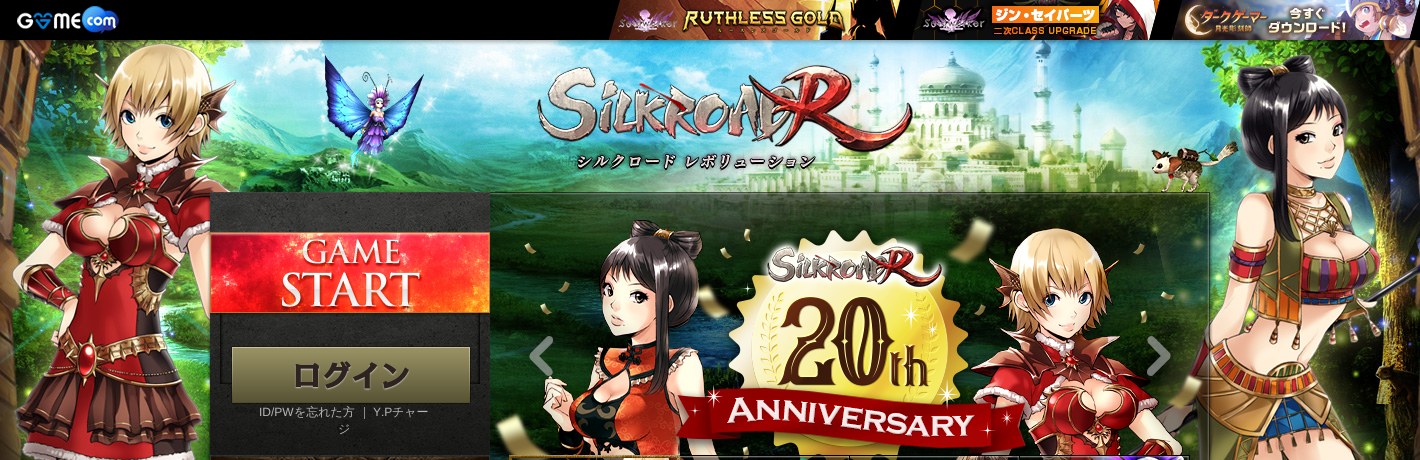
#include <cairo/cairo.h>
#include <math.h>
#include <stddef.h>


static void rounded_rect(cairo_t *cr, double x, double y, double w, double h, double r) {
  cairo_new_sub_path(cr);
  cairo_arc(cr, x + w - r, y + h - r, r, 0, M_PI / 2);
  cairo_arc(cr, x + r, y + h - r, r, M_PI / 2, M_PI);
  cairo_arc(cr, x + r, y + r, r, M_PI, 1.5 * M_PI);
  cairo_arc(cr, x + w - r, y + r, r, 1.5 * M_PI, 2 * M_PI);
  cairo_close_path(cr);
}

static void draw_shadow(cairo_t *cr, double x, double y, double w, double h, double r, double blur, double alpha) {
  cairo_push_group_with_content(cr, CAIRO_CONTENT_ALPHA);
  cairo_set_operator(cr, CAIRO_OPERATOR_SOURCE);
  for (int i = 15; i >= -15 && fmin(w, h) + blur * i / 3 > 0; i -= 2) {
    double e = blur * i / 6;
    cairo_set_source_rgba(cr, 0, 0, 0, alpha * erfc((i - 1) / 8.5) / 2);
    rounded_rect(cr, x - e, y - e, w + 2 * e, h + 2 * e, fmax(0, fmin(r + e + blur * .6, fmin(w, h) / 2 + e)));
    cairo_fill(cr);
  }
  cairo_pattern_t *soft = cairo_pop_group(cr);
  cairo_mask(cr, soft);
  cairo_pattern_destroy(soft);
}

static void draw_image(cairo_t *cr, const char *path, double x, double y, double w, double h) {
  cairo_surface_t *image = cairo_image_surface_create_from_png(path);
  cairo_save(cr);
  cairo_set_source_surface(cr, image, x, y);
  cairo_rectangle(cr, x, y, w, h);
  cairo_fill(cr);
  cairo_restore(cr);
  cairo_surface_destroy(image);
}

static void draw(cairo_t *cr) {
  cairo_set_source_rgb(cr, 1, 1, 1);
  cairo_paint(cr);
  draw_image(cr, "images/1.png", 0, 40, 1420, 420);
  cairo_set_source_rgb(cr, 0, 0, 0);
  draw_shadow(cr, 0, 2, 1420, 40, 0, 2, 0.3);
  cairo_set_source_rgb(cr, 0, 0, 0);
  cairo_rectangle(cr, 0, 0, 1420, 40);
  cairo_fill(cr);
  draw_image(cr, "images/2.png", 17, 6, 102, 28);
  draw_image(cr, "images/3.png", 608, 0, 292, 40);
  draw_image(cr, "images/4.png", 911, 0, 249, 40);
  draw_image(cr, "images/5.png", 1171, 0, 249, 40);
  draw_image(cr, "images/6.png", 210, 232, 280, 85);
  draw_image(cr, "images/7.png", 231, 346, 240, 58);
  draw_image(cr, "images/8.png", 210, 455, 280, 5);
  draw_image(cr, "images/9.png", 493, 215, 711, 245);
  draw_image(cr, "images/10.png", 529, 336, 24, 40);
  draw_image(cr, "images/11.png", 1147, 336, 24, 40);
  draw_image(cr, "images/12.png", 512, 455, 677, 5);
  draw_image(cr, "images/17.png", 610, 458, 60, 2);
  draw_image(cr, "images/13.png", 509, 455, 171, 5);
  draw_image(cr, "images/14.png", 680, 455, 170, 5);
  draw_image(cr, "images/15.png", 849, 455, 170, 5);
  draw_image(cr, "images/16.png", 1019, 455, 171, 5);
  cairo_select_font_face(cr, "Liberation Sans", CAIRO_FONT_SLANT_NORMAL, CAIRO_FONT_WEIGHT_NORMAL);
  cairo_set_font_size(cr, 12);
  cairo_set_source_rgb(cr, 181 / 255.0, 181 / 255.0, 181 / 255.0);
  cairo_move_to(cr, 259, 416);
  cairo_show_text(cr, "ID/PW");
  cairo_select_font_face(cr, "WenQuanYi Zen Hei Medium", CAIRO_FONT_SLANT_NORMAL, CAIRO_FONT_WEIGHT_NORMAL);
  cairo_move_to(cr, 294, 416);
  cairo_show_text(cr, "を忘れた方 ｜");
  cairo_select_font_face(cr, "Liberation Sans", CAIRO_FONT_SLANT_NORMAL, CAIRO_FONT_WEIGHT_NORMAL);
  cairo_move_to(cr, 373, 416);
  cairo_show_text(cr, "Y.P");
  cairo_select_font_face(cr, "WenQuanYi Zen Hei Medium", CAIRO_FONT_SLANT_NORMAL, CAIRO_FONT_WEIGHT_NORMAL);
  cairo_move_to(cr, 392, 416);
  cairo_show_text(cr, "チャー");
  cairo_move_to(cr, 338, 433);
  cairo_show_text(cr, "ジ");
}

int main(void) {
  cairo_surface_t *surface = cairo_image_surface_create(CAIRO_FORMAT_RGB24, 1420, 460);
  cairo_t *cr = cairo_create(surface);
  cairo_font_options_t *options = cairo_font_options_create();
  cairo_font_options_set_hint_metrics(options, CAIRO_HINT_METRICS_OFF);
  cairo_font_options_set_hint_style(options, CAIRO_HINT_STYLE_NONE);
  cairo_set_font_options(cr, options);
  cairo_set_miter_limit(cr, 4);
  draw(cr);
  cairo_surface_write_to_png(surface, "out.png");
  cairo_font_options_destroy(options);
  cairo_destroy(cr);
  cairo_surface_destroy(surface);
  return 0;
}
